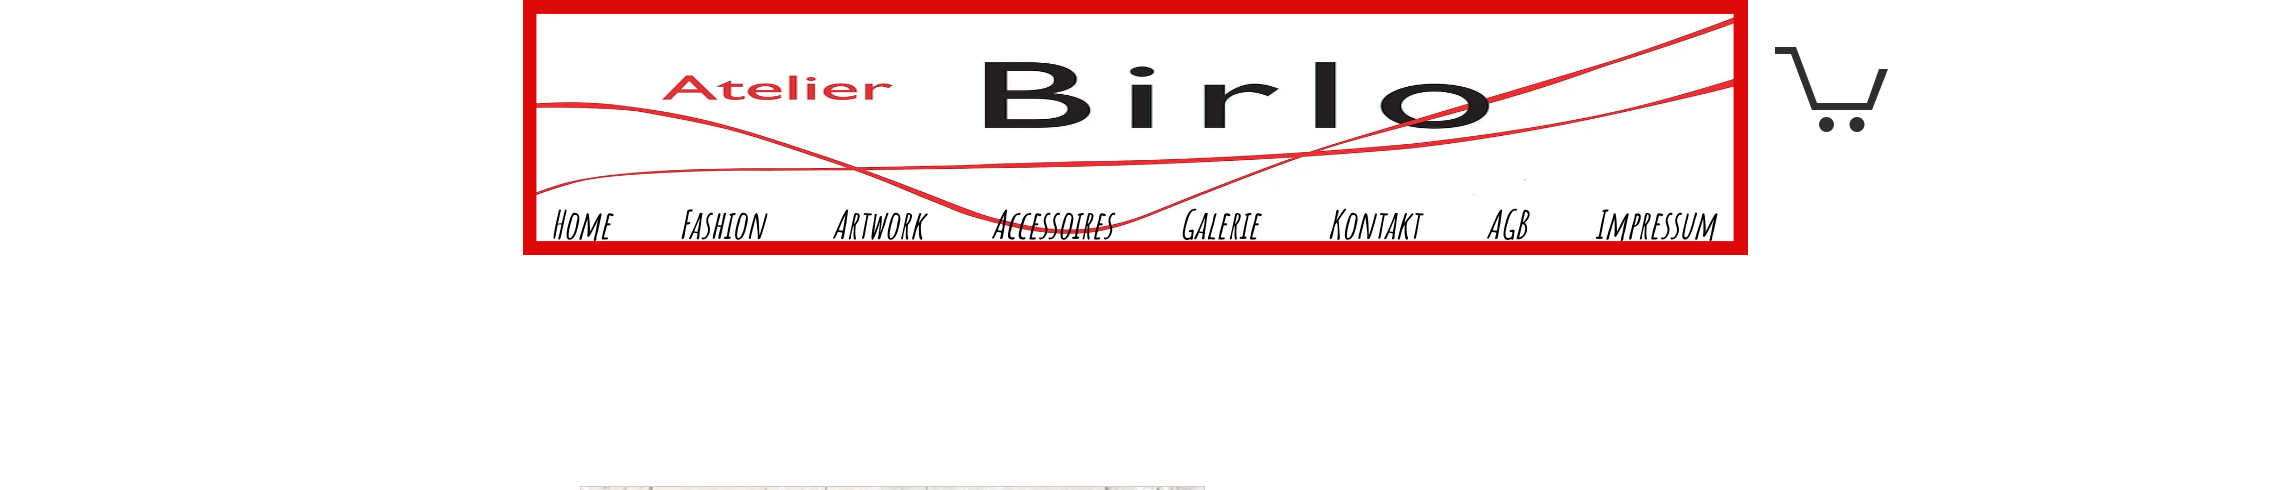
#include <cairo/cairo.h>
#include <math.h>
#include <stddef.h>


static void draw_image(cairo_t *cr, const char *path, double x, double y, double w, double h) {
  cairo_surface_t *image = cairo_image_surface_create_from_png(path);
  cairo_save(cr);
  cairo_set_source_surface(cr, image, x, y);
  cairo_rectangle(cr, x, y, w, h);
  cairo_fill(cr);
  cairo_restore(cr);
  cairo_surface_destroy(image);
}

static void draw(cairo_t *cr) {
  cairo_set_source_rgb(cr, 1, 1, 1);
  cairo_paint(cr);
  cairo_set_source_rgb(cr, 219 / 255.0, 9 / 255.0, 9 / 255.0);
  cairo_rectangle(cr, 523, 0, 1225, 255);
  cairo_fill(cr);
  draw_image(cr, "images/1.png", 536, 13, 1198, 229);
  cairo_set_source_rgb(cr, 47 / 255.0, 46 / 255.0, 46 / 255.0);
  cairo_new_path(cr);
  cairo_move_to(cr, 1888, 69);
  cairo_line_to(cr, 1872, 110);
  cairo_line_to(cr, 1812, 110);
  cairo_line_to(cr, 1791, 54);
  cairo_line_to(cr, 1775, 54);
  cairo_line_to(cr, 1775, 47);
  cairo_line_to(cr, 1796, 47);
  cairo_line_to(cr, 1817, 103);
  cairo_line_to(cr, 1867, 103);
  cairo_line_to(cr, 1879, 69);
  cairo_fill(cr);
  cairo_arc(cr, 1857, 124.5, 7.5, 0, 2 * M_PI);
  cairo_fill(cr);
  cairo_arc(cr, 1826.5, 124.5, 7.5, 0, 2 * M_PI);
  cairo_fill(cr);
  cairo_rectangle(cr, 580.5, 486.5, 624, 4);
  cairo_set_source_rgb(cr, 204 / 255.0, 204 / 255.0, 204 / 255.0);
  cairo_set_line_width(cr, 1);
  cairo_stroke(cr);
  draw_image(cr, "images/2.png", 581, 487, 623, 3);
  cairo_select_font_face(cr, "Amatic SC", CAIRO_FONT_SLANT_ITALIC, CAIRO_FONT_WEIGHT_BOLD);
  cairo_set_font_size(cr, 39);
  cairo_set_source_rgb(cr, 0, 0, 0);
  cairo_move_to(cr, 550, 239);
  cairo_show_text(cr, "Home");
  cairo_move_to(cr, 678, 239);
  cairo_show_text(cr, "Fashion");
  cairo_move_to(cr, 832, 239);
  cairo_show_text(cr, "Artwork");
  cairo_move_to(cr, 991, 239);
  cairo_show_text(cr, "Accessoires");
  cairo_move_to(cr, 1179, 239);
  cairo_show_text(cr, "Galerie");
  cairo_move_to(cr, 1327, 239);
  cairo_show_text(cr, "Kontakt");
  cairo_move_to(cr, 1486, 239);
  cairo_show_text(cr, "AGB");
  cairo_move_to(cr, 1594, 239);
  cairo_show_text(cr, "Impressum");
}

int main(void) {
  cairo_surface_t *surface = cairo_image_surface_create(CAIRO_FORMAT_RGB24, 2270, 490);
  cairo_t *cr = cairo_create(surface);
  cairo_font_options_t *options = cairo_font_options_create();
  cairo_font_options_set_hint_metrics(options, CAIRO_HINT_METRICS_OFF);
  cairo_font_options_set_hint_style(options, CAIRO_HINT_STYLE_NONE);
  cairo_set_font_options(cr, options);
  cairo_set_miter_limit(cr, 4);
  draw(cr);
  cairo_surface_write_to_png(surface, "out.png");
  cairo_font_options_destroy(options);
  cairo_destroy(cr);
  cairo_surface_destroy(surface);
  return 0;
}
